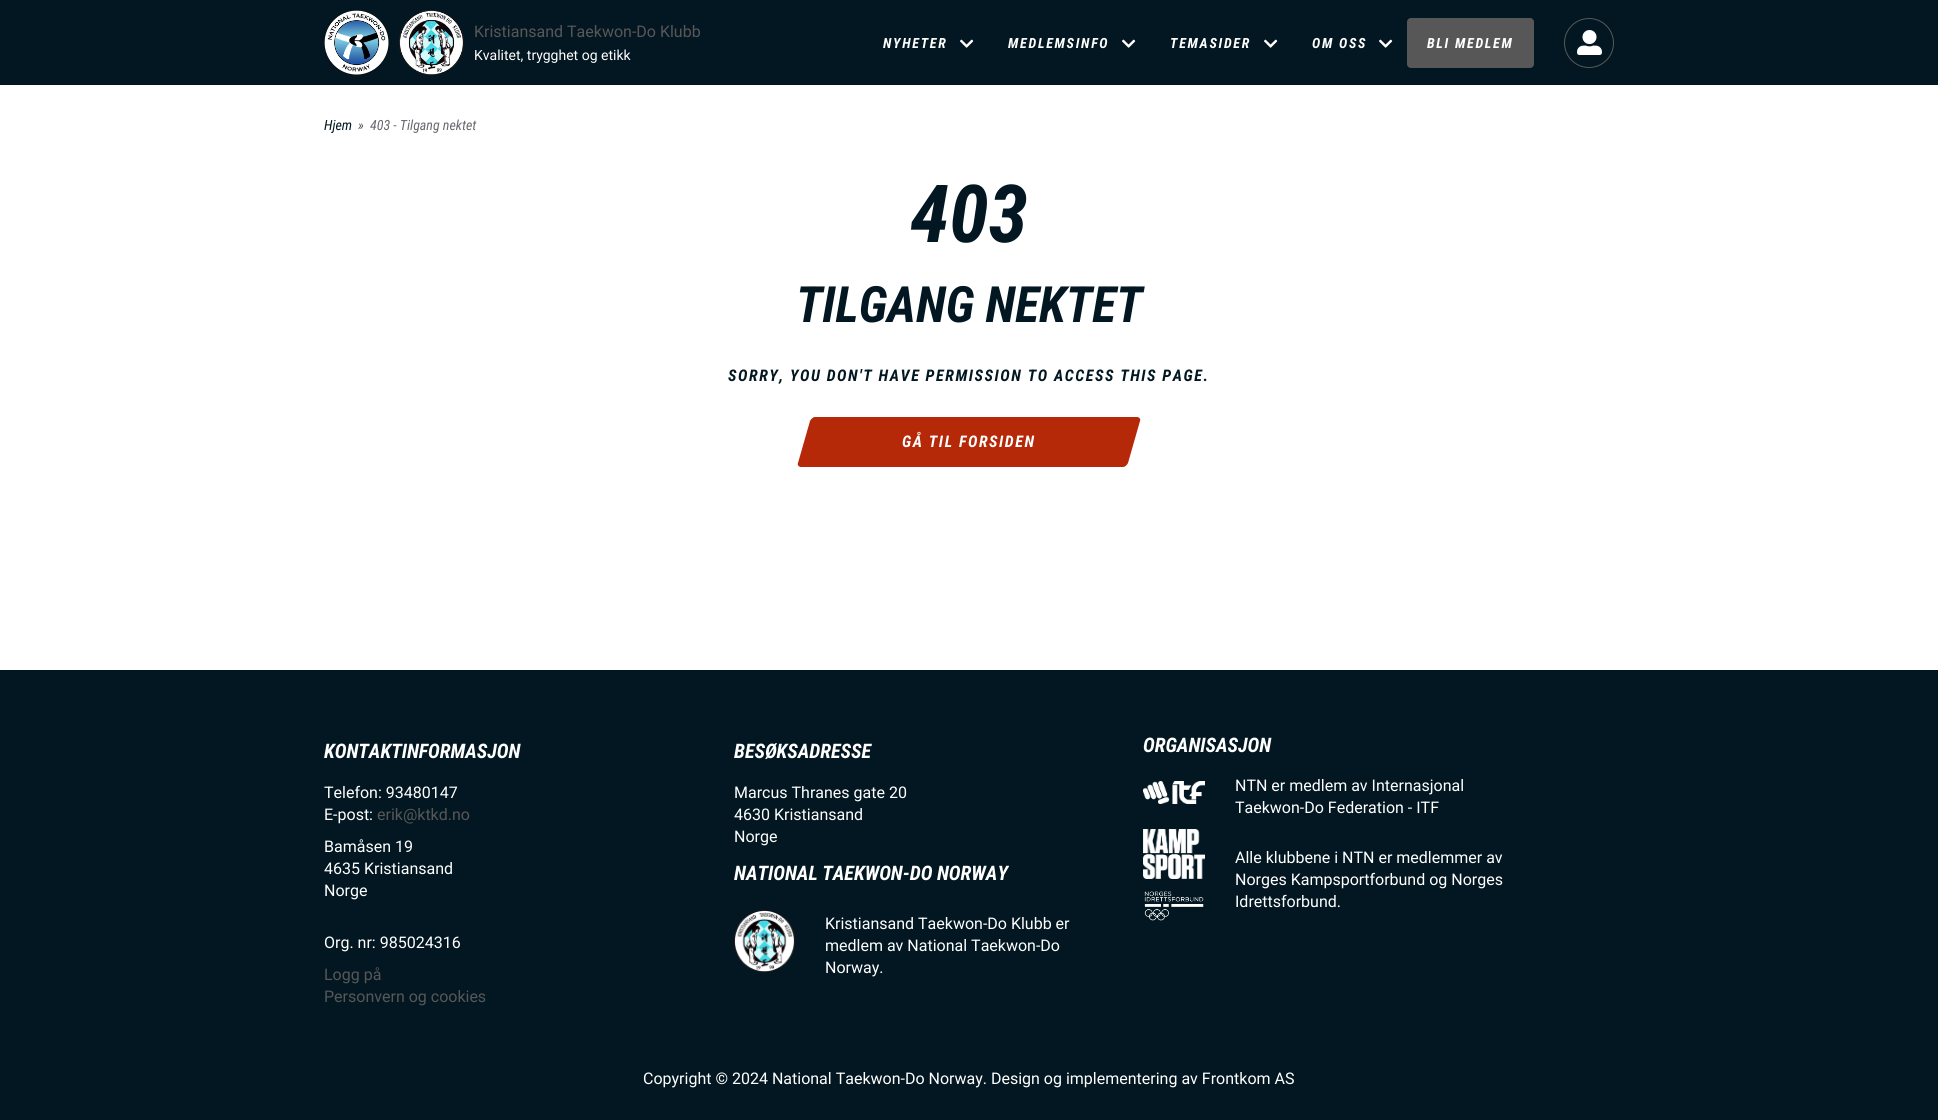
#include <cairo/cairo.h>
#include <math.h>
#include <stddef.h>


static void draw_spaced(cairo_t *cr, double x, double y, const char *s, double letter, double word) {
  cairo_move_to(cr, x, y);
  while (*s) {
    char ch[5] = {0};
    int n = 0;
    do ch[n++] = *s++; while ((*s & 0xC0) == 0x80);
    cairo_show_text(cr, ch);
    cairo_rel_move_to(cr, letter + word * (*ch == ' '), 0);
  }
}

static void rounded_rect(cairo_t *cr, double x, double y, double w, double h, double r) {
  cairo_new_sub_path(cr);
  cairo_arc(cr, x + w - r, y + h - r, r, 0, M_PI / 2);
  cairo_arc(cr, x + r, y + h - r, r, M_PI / 2, M_PI);
  cairo_arc(cr, x + r, y + r, r, M_PI, 1.5 * M_PI);
  cairo_arc(cr, x + w - r, y + r, r, 1.5 * M_PI, 2 * M_PI);
  cairo_close_path(cr);
}

static void draw_image(cairo_t *cr, const char *path, double x, double y, double w, double h) {
  cairo_surface_t *image = cairo_image_surface_create_from_png(path);
  cairo_save(cr);
  cairo_set_source_surface(cr, image, x, y);
  cairo_rectangle(cr, x, y, w, h);
  cairo_fill(cr);
  cairo_restore(cr);
  cairo_surface_destroy(image);
}

static void draw(cairo_t *cr) {
  cairo_set_source_rgb(cr, 1, 1, 1);
  cairo_paint(cr);
  cairo_set_source_rgb(cr, 2 / 255.0, 23 / 255.0, 33 / 255.0);
  cairo_rectangle(cr, 0, 0, 1938, 85);
  cairo_fill(cr);
  draw_image(cr, "images/1.png", 324, 10, 65, 65);
  draw_image(cr, "images/2.png", 399, 10, 65, 65);
  draw_image(cr, "images/3.png", 960, 39, 14, 9);
  draw_image(cr, "images/3.png", 1122, 39, 14, 9);
  draw_image(cr, "images/3.png", 1264, 39, 14, 9);
  draw_image(cr, "images/3.png", 1379, 39, 14, 9);
  cairo_set_source_rgb(cr, 87 / 255.0, 87 / 255.0, 87 / 255.0);
  rounded_rect(cr, 1407, 18, 127, 50, 4);
  cairo_fill(cr);
  draw_image(cr, "images/4.png", 1577, 30, 25, 25);
  cairo_arc(cr, 1589, 43, 24.5, 0, 2 * M_PI);
  cairo_set_line_width(cr, 1);
  cairo_stroke(cr);
  cairo_set_source_rgb(cr, 181 / 255.0, 40 / 255.0, 8 / 255.0);
  cairo_new_path(cr);
  cairo_move_to(cr, 815, 417);
  cairo_line_to(cr, 1137, 417);
  cairo_curve_to(cr, 1139, 417, 1141, 419, 1140, 421);
  cairo_line_to(cr, 1128, 463);
  cairo_curve_to(cr, 1127, 465, 1125, 467, 1123, 467);
  cairo_line_to(cr, 801, 467);
  cairo_curve_to(cr, 799, 467, 797, 465, 798, 463);
  cairo_line_to(cr, 810, 421);
  cairo_curve_to(cr, 811, 419, 813, 417, 815, 417);
  cairo_close_path(cr);
  cairo_fill(cr);
  cairo_set_source_rgb(cr, 2 / 255.0, 23 / 255.0, 33 / 255.0);
  cairo_rectangle(cr, 0, 670, 1938, 450);
  cairo_fill(cr);
  draw_image(cr, "images/5.png", 734, 910, 61, 62);
  draw_image(cr, "images/6.png", 1143, 781, 62, 23);
  draw_image(cr, "images/7.png", 1143, 829, 62, 50);
  draw_image(cr, "images/8.png", 1144, 891, 60, 30);
  cairo_select_font_face(cr, "Roboto", CAIRO_FONT_SLANT_NORMAL, CAIRO_FONT_WEIGHT_NORMAL);
  cairo_set_font_size(cr, 16);
  cairo_set_source_rgb(cr, 87 / 255.0, 87 / 255.0, 87 / 255.0);
  cairo_move_to(cr, 474, 37);
  cairo_show_text(cr, "Kristiansand Taekwon-Do Klubb");
  cairo_set_font_size(cr, 14);
  cairo_set_source_rgb(cr, 1, 1, 1);
  cairo_move_to(cr, 474, 60);
  cairo_show_text(cr, "Kvalitet, trygghet og etikk");
  cairo_select_font_face(cr, "Roboto Condensed", CAIRO_FONT_SLANT_ITALIC, CAIRO_FONT_WEIGHT_BOLD);
  draw_spaced(cr, 883, 48, "NYHETER", 1.75, 0);
  draw_spaced(cr, 1008, 48, "MEDLEMSINFO", 1.75, 0);
  draw_spaced(cr, 1170, 48, "TEMASIDER", 1.75, 0);
  draw_spaced(cr, 1312, 48, "OM OSS", 1.75, 0);
  draw_spaced(cr, 1427, 48, "BLI MEDLEM", 1.75, 0);
  cairo_select_font_face(cr, "Roboto Condensed", CAIRO_FONT_SLANT_ITALIC, CAIRO_FONT_WEIGHT_NORMAL);
  cairo_set_source_rgb(cr, 2 / 255.0, 23 / 255.0, 33 / 255.0);
  cairo_move_to(cr, 324, 130);
  cairo_show_text(cr, "Hjem");
  cairo_set_source_rgb(cr, 87 / 255.0, 87 / 255.0, 87 / 255.0);
  cairo_move_to(cr, 358, 130);
  cairo_show_text(cr, "»");
  cairo_set_source_rgb(cr, 105 / 255.0, 106 / 255.0, 111 / 255.0);
  cairo_move_to(cr, 370, 130);
  cairo_show_text(cr, "403 - Tilgang nektet");
  cairo_select_font_face(cr, "Roboto Condensed", CAIRO_FONT_SLANT_ITALIC, CAIRO_FONT_WEIGHT_BOLD);
  cairo_set_font_size(cr, 80);
  cairo_set_source_rgb(cr, 2 / 255.0, 23 / 255.0, 33 / 255.0);
  cairo_move_to(cr, 910, 242);
  cairo_show_text(cr, "403");
  cairo_set_font_size(cr, 50);
  cairo_move_to(cr, 796, 322);
  cairo_show_text(cr, "TILGANG NEKTET");
  cairo_set_font_size(cr, 16);
  draw_spaced(cr, 728, 381, "SORRY, YOU DON'T HAVE PERMISSION TO ACCESS THIS PAGE.", 1.6, 0);
  cairo_set_source_rgb(cr, 1, 1, 1);
  draw_spaced(cr, 902, 447, "GÅ TIL FORSIDEN", 1.6, 0);
  cairo_set_font_size(cr, 20);
  cairo_move_to(cr, 324, 758);
  cairo_show_text(cr, "KONTAKTINFORMASJON");
  cairo_select_font_face(cr, "Roboto", CAIRO_FONT_SLANT_NORMAL, CAIRO_FONT_WEIGHT_NORMAL);
  cairo_set_font_size(cr, 16);
  cairo_move_to(cr, 324, 798);
  cairo_show_text(cr, "Telefon: 93480147");
  cairo_move_to(cr, 324, 820);
  cairo_show_text(cr, "E-post:");
  cairo_set_source_rgb(cr, 87 / 255.0, 87 / 255.0, 87 / 255.0);
  cairo_move_to(cr, 377, 820);
  cairo_show_text(cr, "erik@ktkd.no");
  cairo_set_source_rgb(cr, 1, 1, 1);
  cairo_move_to(cr, 324, 852);
  cairo_show_text(cr, "Bamåsen 19");
  cairo_move_to(cr, 324, 874);
  cairo_show_text(cr, "4635 Kristiansand");
  cairo_move_to(cr, 324, 896);
  cairo_show_text(cr, "Norge");
  cairo_move_to(cr, 324, 948);
  cairo_show_text(cr, "Org. nr: 985024316");
  cairo_set_source_rgb(cr, 87 / 255.0, 87 / 255.0, 87 / 255.0);
  cairo_move_to(cr, 324, 980);
  cairo_show_text(cr, "Logg på");
  cairo_move_to(cr, 324, 1002);
  cairo_show_text(cr, "Personvern og cookies");
  cairo_select_font_face(cr, "Roboto Condensed", CAIRO_FONT_SLANT_ITALIC, CAIRO_FONT_WEIGHT_BOLD);
  cairo_set_font_size(cr, 20);
  cairo_set_source_rgb(cr, 1, 1, 1);
  cairo_move_to(cr, 734, 758);
  cairo_show_text(cr, "BESØKSADRESSE");
  cairo_select_font_face(cr, "Roboto", CAIRO_FONT_SLANT_NORMAL, CAIRO_FONT_WEIGHT_NORMAL);
  cairo_set_font_size(cr, 16);
  cairo_move_to(cr, 734, 798);
  cairo_show_text(cr, "Marcus Thranes gate 20");
  cairo_move_to(cr, 734, 820);
  cairo_show_text(cr, "4630 Kristiansand");
  cairo_move_to(cr, 734, 842);
  cairo_show_text(cr, "Norge");
  cairo_select_font_face(cr, "Roboto Condensed", CAIRO_FONT_SLANT_ITALIC, CAIRO_FONT_WEIGHT_BOLD);
  cairo_set_font_size(cr, 20);
  cairo_move_to(cr, 734, 880);
  cairo_show_text(cr, "NATIONAL TAEKWON-DO NORWAY");
  cairo_select_font_face(cr, "Roboto", CAIRO_FONT_SLANT_NORMAL, CAIRO_FONT_WEIGHT_NORMAL);
  cairo_set_font_size(cr, 16);
  cairo_move_to(cr, 825, 929);
  cairo_show_text(cr, "Kristiansand Taekwon-Do Klubb er");
  cairo_move_to(cr, 825, 951);
  cairo_show_text(cr, "medlem av National Taekwon-Do");
  cairo_move_to(cr, 825, 973);
  cairo_show_text(cr, "Norway.");
  cairo_select_font_face(cr, "Roboto Condensed", CAIRO_FONT_SLANT_ITALIC, CAIRO_FONT_WEIGHT_BOLD);
  cairo_set_font_size(cr, 20);
  cairo_move_to(cr, 1143, 752);
  cairo_show_text(cr, "ORGANISASJON");
  cairo_select_font_face(cr, "Roboto", CAIRO_FONT_SLANT_NORMAL, CAIRO_FONT_WEIGHT_NORMAL);
  cairo_set_font_size(cr, 16);
  cairo_move_to(cr, 1235, 791);
  cairo_show_text(cr, "NTN er medlem av Internasjonal");
  cairo_move_to(cr, 1235, 813);
  cairo_show_text(cr, "Taekwon-Do Federation - ITF");
  cairo_move_to(cr, 1235, 863);
  cairo_show_text(cr, "Alle klubbene i NTN er medlemmer av");
  cairo_move_to(cr, 1235, 885);
  cairo_show_text(cr, "Norges Kampsportforbund og Norges");
  cairo_move_to(cr, 1235, 907);
  cairo_show_text(cr, "Idrettsforbund.");
  cairo_move_to(cr, 643, 1084);
  cairo_show_text(cr, "Copyright © 2024 National Taekwon-Do Norway. Design og implementering av Frontkom AS");
}

int main(void) {
  cairo_surface_t *surface = cairo_image_surface_create(CAIRO_FORMAT_RGB24, 1938, 1120);
  cairo_t *cr = cairo_create(surface);
  cairo_font_options_t *options = cairo_font_options_create();
  cairo_font_options_set_hint_metrics(options, CAIRO_HINT_METRICS_OFF);
  cairo_font_options_set_hint_style(options, CAIRO_HINT_STYLE_NONE);
  cairo_set_font_options(cr, options);
  cairo_set_miter_limit(cr, 4);
  draw(cr);
  cairo_surface_write_to_png(surface, "out.png");
  cairo_font_options_destroy(options);
  cairo_destroy(cr);
  cairo_surface_destroy(surface);
  return 0;
}
